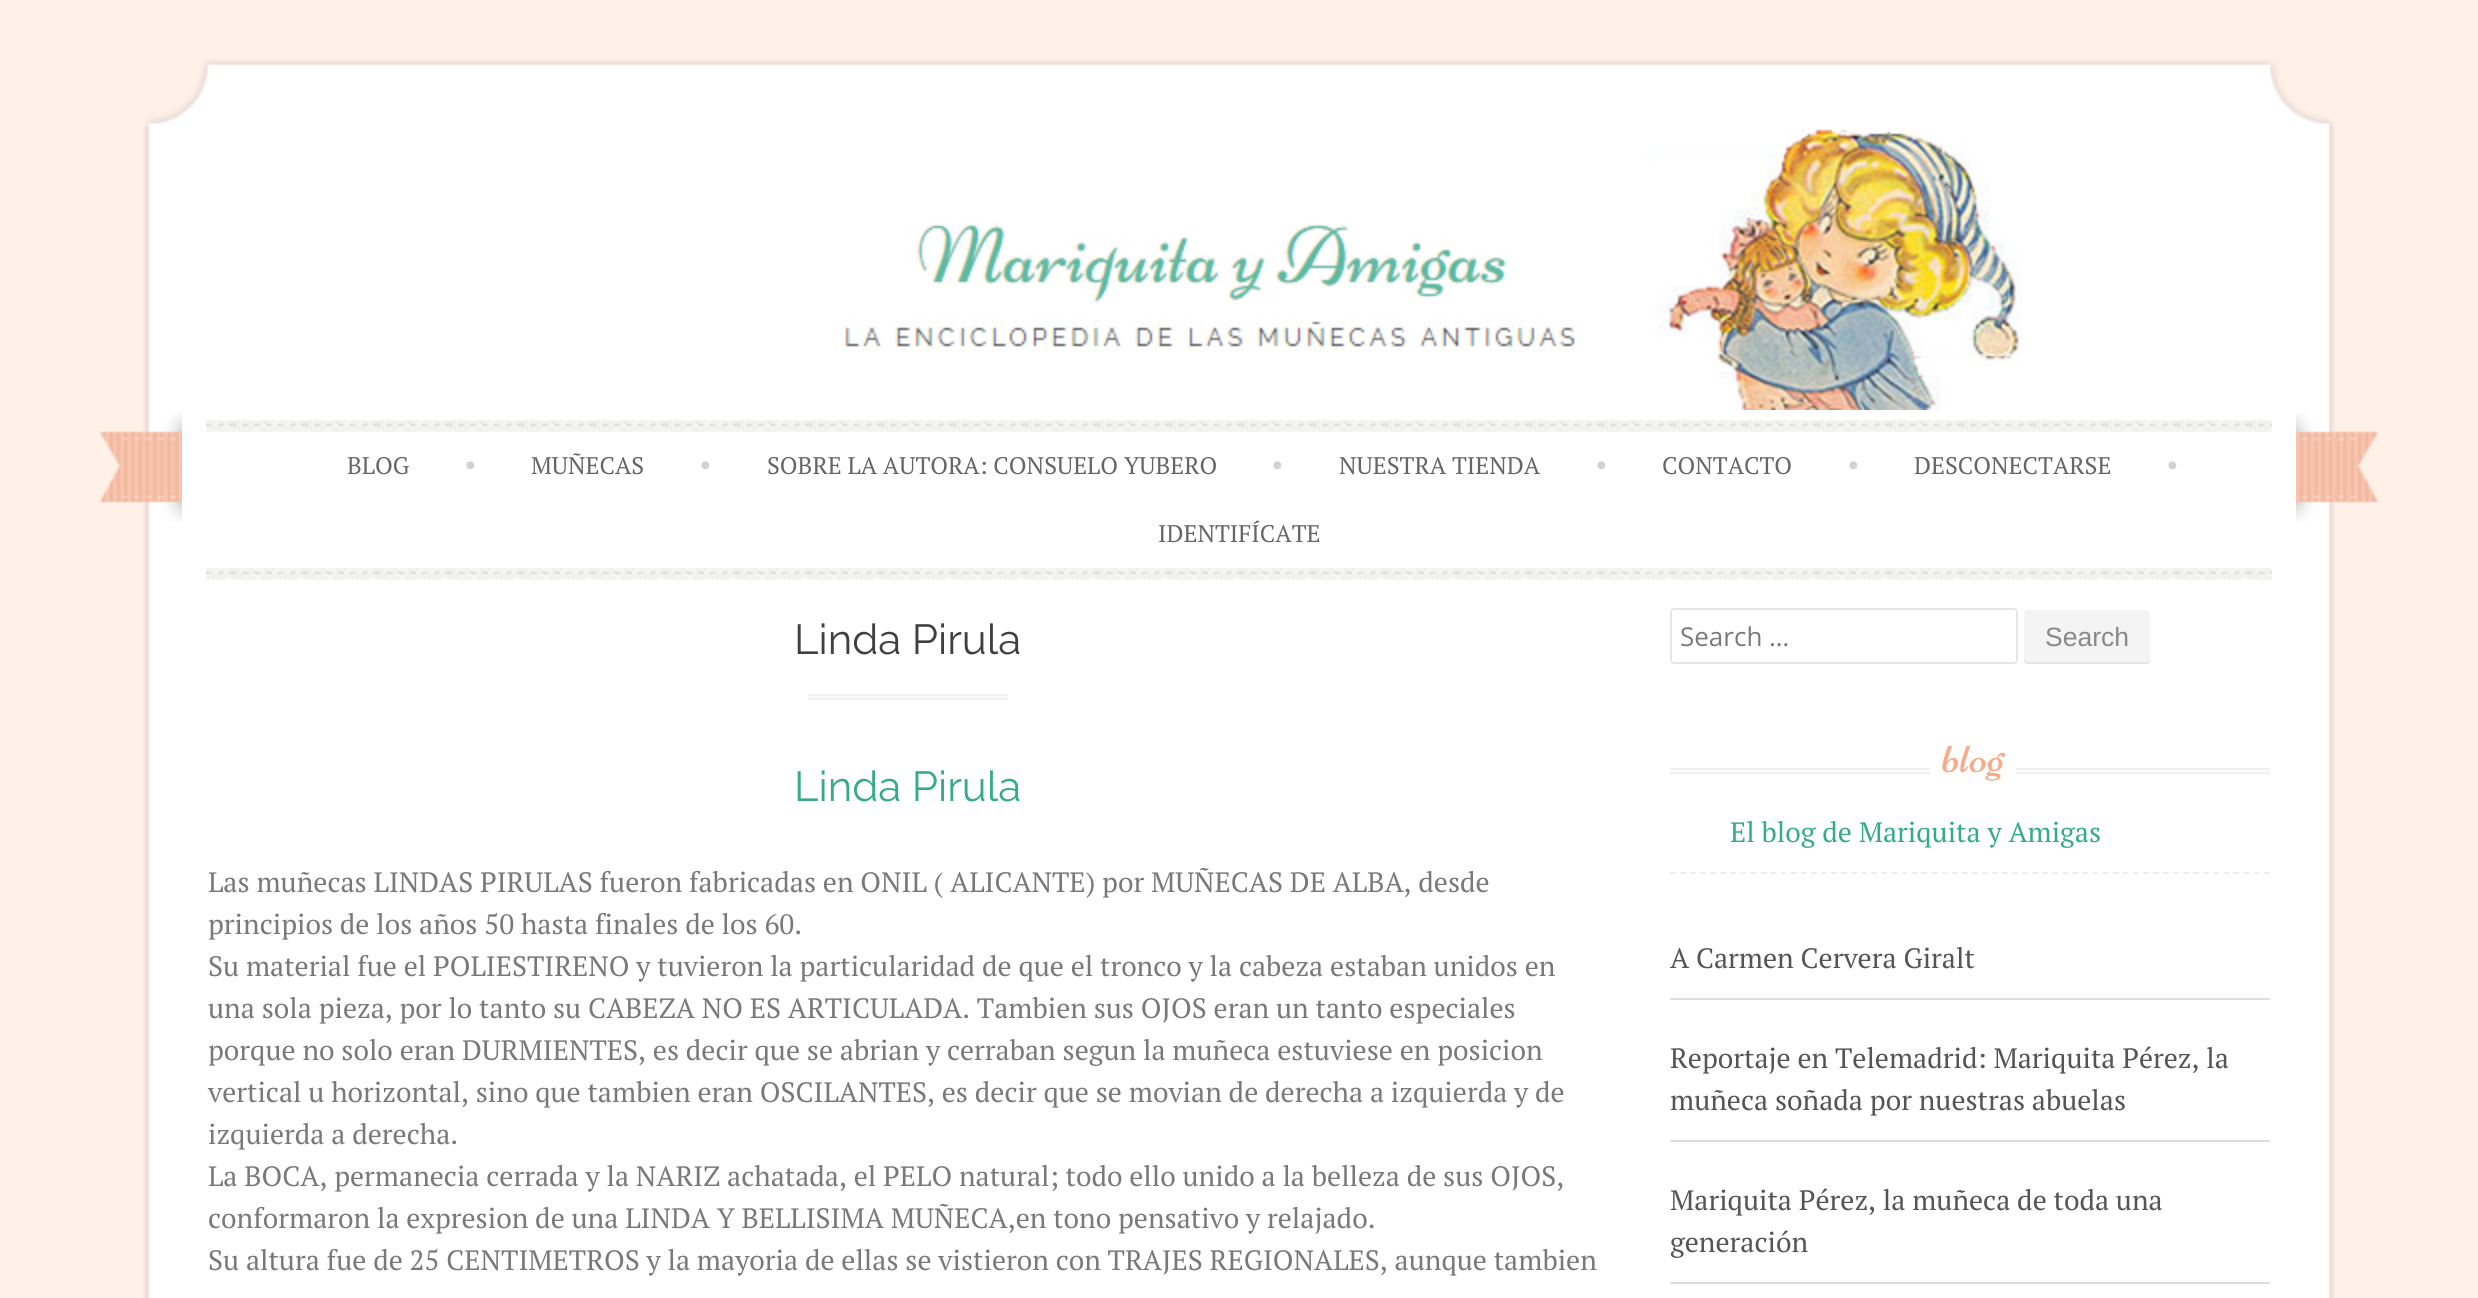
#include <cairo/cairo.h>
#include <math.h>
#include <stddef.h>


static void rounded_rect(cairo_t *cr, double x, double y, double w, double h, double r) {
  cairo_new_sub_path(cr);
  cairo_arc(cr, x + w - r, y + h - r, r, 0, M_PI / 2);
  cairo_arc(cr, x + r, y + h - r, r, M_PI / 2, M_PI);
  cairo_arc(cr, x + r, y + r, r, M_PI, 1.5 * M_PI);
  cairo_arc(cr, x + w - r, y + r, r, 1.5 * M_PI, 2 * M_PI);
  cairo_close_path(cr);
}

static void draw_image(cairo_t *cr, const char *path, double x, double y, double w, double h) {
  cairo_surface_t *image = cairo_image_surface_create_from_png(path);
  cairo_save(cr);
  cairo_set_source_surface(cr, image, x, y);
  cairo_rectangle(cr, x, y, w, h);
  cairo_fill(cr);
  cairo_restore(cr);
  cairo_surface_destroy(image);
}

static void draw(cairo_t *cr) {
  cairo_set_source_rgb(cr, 1, 240 / 255.0, 232 / 255.0);
  cairo_paint(cr);
  draw_image(cr, "images/1.png", 144, 59, 2190, 67);
  draw_image(cr, "images/2.png", 143, 126, 2192, 454);
  draw_image(cr, "images/3.png", 845, 129, 1176, 281);
  draw_image(cr, "images/4.png", 100, 413, 82, 109);
  draw_image(cr, "images/5.png", 206, 420, 2066, 12);
  draw_image(cr, "images/5.png", 206, 568, 2066, 12);
  draw_image(cr, "images/6.png", 2296, 413, 82, 109);
  draw_image(cr, "images/7.png", 143, 580, 2192, 718);
  draw_image(cr, "images/8.png", 808, 694, 200, 6);
  rounded_rect(cr, 1671, 609, 346, 54, 3);
  cairo_set_source_rgb(cr, 230 / 255.0, 230 / 255.0, 230 / 255.0);
  cairo_stroke(cr);
  cairo_set_source_rgb(cr, 244 / 255.0, 244 / 255.0, 244 / 255.0);
  rounded_rect(cr, 2024, 610, 126, 54, 4);
  cairo_fill(cr);
  cairo_set_source_rgba(cr, 0, 0, 0, 0.07);
  cairo_new_path(cr);
  cairo_move_to(cr, 2024, 658);
  cairo_line_to(cr, 2024, 660);
  cairo_curve_to(cr, 2024, 662, 2026, 664, 2028, 664);
  cairo_line_to(cr, 2146, 664);
  cairo_curve_to(cr, 2148, 664, 2150, 662, 2150, 660);
  cairo_line_to(cr, 2150, 658);
  cairo_curve_to(cr, 2150, 660, 2148, 662, 2146, 662);
  cairo_line_to(cr, 2028, 662);
  cairo_curve_to(cr, 2026, 662, 2024, 660, 2024, 658);
  cairo_close_path(cr);
  cairo_fill(cr);
  draw_image(cr, "images/9.png", 1670, 768, 600, 6);
  cairo_set_source_rgb(cr, 1, 1, 1);
  cairo_rectangle(cr, 1930, 768, 86, 6);
  cairo_fill(cr);
  draw_image(cr, "images/10.png", 1942, 746, 64, 35);
  cairo_new_path(cr);
  cairo_move_to(cr, 1670, 873);
  cairo_line_to(cr, 2270, 873);
  cairo_set_source_rgb(cr, 238 / 255.0, 238 / 255.0, 238 / 255.0);
  cairo_set_dash(cr, (double[]){6, 4.06}, 2, 0);
  cairo_stroke(cr);
  cairo_set_source_rgb(cr, 221 / 255.0, 221 / 255.0, 221 / 255.0);
  cairo_rectangle(cr, 1670, 998, 600, 2);
  cairo_fill(cr);
  cairo_rectangle(cr, 1670, 1140, 600, 2);
  cairo_fill(cr);
  cairo_rectangle(cr, 1670, 1282, 600, 2);
  cairo_fill(cr);
  cairo_select_font_face(cr, "PT Serif", CAIRO_FONT_SLANT_NORMAL, CAIRO_FONT_WEIGHT_NORMAL);
  cairo_set_font_size(cr, 24);
  cairo_set_source_rgb(cr, 102 / 255.0, 102 / 255.0, 102 / 255.0);
  cairo_move_to(cr, 347, 474);
  cairo_show_text(cr, "BLOG");
  cairo_set_font_size(cr, 28);
  cairo_set_source_rgb(cr, 210 / 255.0, 210 / 255.0, 210 / 255.0);
  cairo_move_to(cr, 464, 474);
  cairo_show_text(cr, "•");
  cairo_set_font_size(cr, 24);
  cairo_set_source_rgb(cr, 102 / 255.0, 102 / 255.0, 102 / 255.0);
  cairo_move_to(cr, 531, 474);
  cairo_show_text(cr, "MUÑECAS");
  cairo_set_font_size(cr, 28);
  cairo_set_source_rgb(cr, 210 / 255.0, 210 / 255.0, 210 / 255.0);
  cairo_move_to(cr, 699, 474);
  cairo_show_text(cr, "•");
  cairo_set_font_size(cr, 24);
  cairo_set_source_rgb(cr, 102 / 255.0, 102 / 255.0, 102 / 255.0);
  cairo_move_to(cr, 767, 474);
  cairo_show_text(cr, "SOBRE LA AUTORA: CONSUELO YUBERO");
  cairo_set_font_size(cr, 28);
  cairo_set_source_rgb(cr, 210 / 255.0, 210 / 255.0, 210 / 255.0);
  cairo_move_to(cr, 1271, 474);
  cairo_show_text(cr, "•");
  cairo_set_font_size(cr, 24);
  cairo_set_source_rgb(cr, 102 / 255.0, 102 / 255.0, 102 / 255.0);
  cairo_move_to(cr, 1339, 474);
  cairo_show_text(cr, "NUESTRA TIENDA");
  cairo_set_font_size(cr, 28);
  cairo_set_source_rgb(cr, 210 / 255.0, 210 / 255.0, 210 / 255.0);
  cairo_move_to(cr, 1595, 474);
  cairo_show_text(cr, "•");
  cairo_set_font_size(cr, 24);
  cairo_set_source_rgb(cr, 102 / 255.0, 102 / 255.0, 102 / 255.0);
  cairo_move_to(cr, 1662, 474);
  cairo_show_text(cr, "CONTACTO");
  cairo_set_font_size(cr, 28);
  cairo_set_source_rgb(cr, 210 / 255.0, 210 / 255.0, 210 / 255.0);
  cairo_move_to(cr, 1847, 474);
  cairo_show_text(cr, "•");
  cairo_set_font_size(cr, 24);
  cairo_set_source_rgb(cr, 102 / 255.0, 102 / 255.0, 102 / 255.0);
  cairo_move_to(cr, 1914, 474);
  cairo_show_text(cr, "DESCONECTARSE");
  cairo_set_font_size(cr, 28);
  cairo_set_source_rgb(cr, 210 / 255.0, 210 / 255.0, 210 / 255.0);
  cairo_move_to(cr, 2166, 474);
  cairo_show_text(cr, "•");
  cairo_set_font_size(cr, 24);
  cairo_set_source_rgb(cr, 102 / 255.0, 102 / 255.0, 102 / 255.0);
  cairo_move_to(cr, 1158, 542);
  cairo_show_text(cr, "IDENTIFÍCATE");
  cairo_select_font_face(cr, "Raleway", CAIRO_FONT_SLANT_NORMAL, CAIRO_FONT_WEIGHT_NORMAL);
  cairo_set_font_size(cr, 42);
  cairo_set_source_rgb(cr, 64 / 255.0, 64 / 255.0, 64 / 255.0);
  cairo_move_to(cr, 794, 654);
  cairo_show_text(cr, "Linda Pirula");
  cairo_set_source_rgb(cr, 54 / 255.0, 171 / 255.0, 138 / 255.0);
  cairo_move_to(cr, 794, 801);
  cairo_show_text(cr, "Linda Pirula");
  cairo_select_font_face(cr, "PT Serif", CAIRO_FONT_SLANT_NORMAL, CAIRO_FONT_WEIGHT_NORMAL);
  cairo_set_font_size(cr, 28);
  cairo_set_source_rgb(cr, 121 / 255.0, 121 / 255.0, 121 / 255.0);
  cairo_move_to(cr, 208, 892);
  cairo_show_text(cr, "Las muñecas LINDAS PIRULAS fueron fabricadas en ONIL ( ALICANTE) por MUÑECAS DE ALBA, desde");
  cairo_move_to(cr, 208, 934);
  cairo_show_text(cr, "principios de los años 50 hasta finales de los 60.");
  cairo_move_to(cr, 208, 976);
  cairo_show_text(cr, "Su material fue el POLIESTIRENO y tuvieron la particularidad de que el tronco y la cabeza estaban unidos en");
  cairo_move_to(cr, 208, 1018);
  cairo_show_text(cr, "una sola pieza, por lo tanto su CABEZA NO ES ARTICULADA. Tambien sus OJOS eran un tanto especiales");
  cairo_move_to(cr, 208, 1060);
  cairo_show_text(cr, "porque no solo eran DURMIENTES, es decir que se abrian y cerraban segun la muñeca estuviese en posicion");
  cairo_move_to(cr, 208, 1102);
  cairo_show_text(cr, "vertical u horizontal, sino que tambien eran OSCILANTES, es decir que se movian de derecha a izquierda y de");
  cairo_move_to(cr, 208, 1144);
  cairo_show_text(cr, "izquierda a derecha.");
  cairo_move_to(cr, 208, 1186);
  cairo_show_text(cr, "La BOCA, permanecia cerrada y la NARIZ achatada, el PELO natural; todo ello unido a la belleza de sus OJOS,");
  cairo_move_to(cr, 208, 1228);
  cairo_show_text(cr, "conformaron la expresion de una LINDA Y BELLISIMA MUÑECA,en tono pensativo y relajado.");
  cairo_move_to(cr, 208, 1270);
  cairo_show_text(cr, "Su altura fue de 25 CENTIMETROS y la mayoria de ellas se vistieron con TRAJES REGIONALES, aunque tambien");
  cairo_select_font_face(cr, "Open Sans", CAIRO_FONT_SLANT_NORMAL, CAIRO_FONT_WEIGHT_NORMAL);
  cairo_set_font_size(cr, 26);
  cairo_move_to(cr, 1680, 646);
  cairo_show_text(cr, "Search …");
  cairo_select_font_face(cr, "Liberation Sans", CAIRO_FONT_SLANT_NORMAL, CAIRO_FONT_WEIGHT_NORMAL);
  cairo_set_font_size(cr, 26.5);
  cairo_set_source_rgb(cr, 136 / 255.0, 136 / 255.0, 136 / 255.0);
  cairo_move_to(cr, 2045, 646);
  cairo_show_text(cr, "Search");
  cairo_select_font_face(cr, "PT Serif", CAIRO_FONT_SLANT_NORMAL, CAIRO_FONT_WEIGHT_NORMAL);
  cairo_set_font_size(cr, 28);
  cairo_set_source_rgb(cr, 54 / 255.0, 171 / 255.0, 138 / 255.0);
  cairo_move_to(cr, 1730, 842);
  cairo_show_text(cr, "El blog de Mariquita y Amigas");
  cairo_set_source_rgb(cr, 85 / 255.0, 85 / 255.0, 85 / 255.0);
  cairo_move_to(cr, 1670, 968);
  cairo_show_text(cr, "A Carmen Cervera Giralt");
  cairo_move_to(cr, 1670, 1068);
  cairo_show_text(cr, "Reportaje en Telemadrid: Mariquita Pérez, la");
  cairo_move_to(cr, 1670, 1110);
  cairo_show_text(cr, "muñeca soñada por nuestras abuelas");
  cairo_move_to(cr, 1670, 1210);
  cairo_show_text(cr, "Mariquita Pérez, la muñeca de toda una");
  cairo_move_to(cr, 1670, 1252);
  cairo_show_text(cr, "generación");
}

int main(void) {
  cairo_surface_t *surface = cairo_image_surface_create(CAIRO_FORMAT_RGB24, 2478, 1298);
  cairo_t *cr = cairo_create(surface);
  cairo_font_options_t *options = cairo_font_options_create();
  cairo_font_options_set_hint_metrics(options, CAIRO_HINT_METRICS_OFF);
  cairo_font_options_set_hint_style(options, CAIRO_HINT_STYLE_NONE);
  cairo_set_font_options(cr, options);
  cairo_set_miter_limit(cr, 4);
  draw(cr);
  cairo_surface_write_to_png(surface, "out.png");
  cairo_font_options_destroy(options);
  cairo_destroy(cr);
  cairo_surface_destroy(surface);
  return 0;
}
